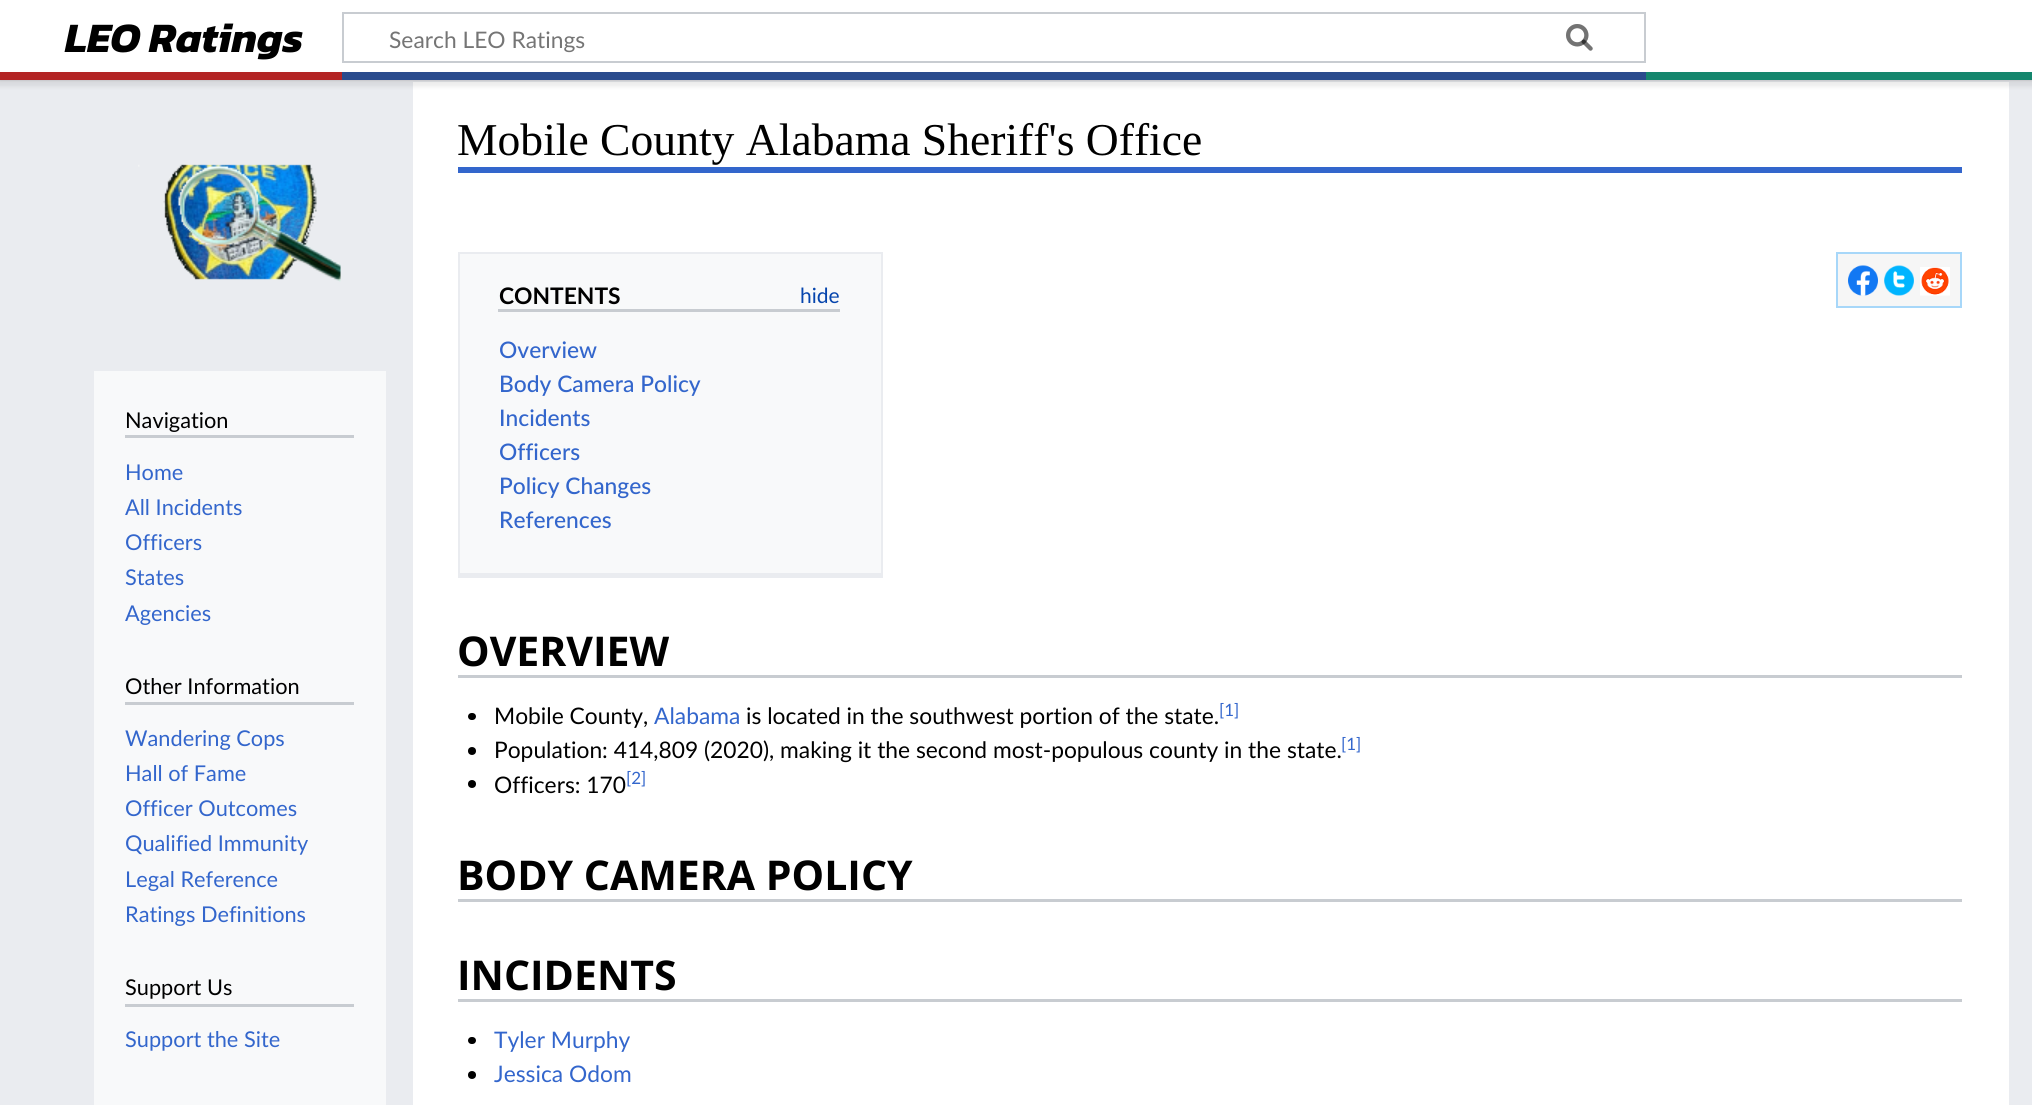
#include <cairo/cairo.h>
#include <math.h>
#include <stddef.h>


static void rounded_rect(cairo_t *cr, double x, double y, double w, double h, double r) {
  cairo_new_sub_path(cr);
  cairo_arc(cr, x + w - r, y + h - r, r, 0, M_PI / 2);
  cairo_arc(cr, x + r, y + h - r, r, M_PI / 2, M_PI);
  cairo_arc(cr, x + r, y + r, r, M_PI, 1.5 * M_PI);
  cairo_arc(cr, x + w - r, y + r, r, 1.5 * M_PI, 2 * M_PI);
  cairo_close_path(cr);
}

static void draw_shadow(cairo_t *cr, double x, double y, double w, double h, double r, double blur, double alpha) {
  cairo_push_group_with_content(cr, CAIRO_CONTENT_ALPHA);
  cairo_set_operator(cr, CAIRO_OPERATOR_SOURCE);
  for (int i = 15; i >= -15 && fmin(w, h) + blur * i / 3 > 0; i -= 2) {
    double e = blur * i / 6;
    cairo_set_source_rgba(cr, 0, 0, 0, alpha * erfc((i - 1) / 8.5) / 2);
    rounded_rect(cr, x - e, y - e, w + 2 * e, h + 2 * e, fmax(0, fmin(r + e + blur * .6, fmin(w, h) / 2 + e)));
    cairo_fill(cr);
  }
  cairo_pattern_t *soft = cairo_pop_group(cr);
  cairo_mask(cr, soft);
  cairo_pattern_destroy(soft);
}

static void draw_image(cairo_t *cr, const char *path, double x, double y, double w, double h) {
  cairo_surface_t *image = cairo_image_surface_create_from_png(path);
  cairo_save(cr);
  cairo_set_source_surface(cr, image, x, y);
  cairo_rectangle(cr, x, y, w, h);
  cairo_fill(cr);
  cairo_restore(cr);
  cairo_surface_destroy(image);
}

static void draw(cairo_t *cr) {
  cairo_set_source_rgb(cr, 234 / 255.0, 236 / 255.0, 240 / 255.0);
  cairo_paint(cr);
  cairo_set_source_rgb(cr, 1, 1, 1);
  cairo_rectangle(cr, 413, 82, 1596, 1023);
  cairo_fill(cr);
  cairo_set_source_rgb(cr, 0, 0, 0);
  draw_shadow(cr, 0, 72, 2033, 8, 0, 1.5, 0.2);
  draw_shadow(cr, -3, 74, 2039, 13, 0, 2, 0.07);
  cairo_set_source_rgb(cr, 1, 1, 1);
  cairo_rectangle(cr, 0, 0, 2032, 72);
  cairo_fill(cr);
  cairo_rectangle(cr, 343, 13, 1302, 49);
  cairo_set_source_rgb(cr, 200 / 255.0, 204 / 255.0, 209 / 255.0);
  cairo_stroke(cr);
  draw_image(cr, "images/1.png", 1566, 24, 27, 27);
  draw_image(cr, "images/2.png", 1566, 24, 27, 27);
  cairo_set_source_rgb(cr, 179 / 255.0, 36 / 255.0, 36 / 255.0);
  cairo_rectangle(cr, 0, 72, 342, 8);
  cairo_fill(cr);
  cairo_set_source_rgb(cr, 42 / 255.0, 75 / 255.0, 141 / 255.0);
  cairo_rectangle(cr, 342, 72, 1304, 8);
  cairo_fill(cr);
  cairo_set_source_rgb(cr, 20 / 255.0, 134 / 255.0, 109 / 255.0);
  cairo_rectangle(cr, 1646, 72, 386, 8);
  cairo_fill(cr);
  draw_image(cr, "images/3.png", 138, 164, 203, 118);
  cairo_set_source_rgb(cr, 248 / 255.0, 249 / 255.0, 250 / 255.0);
  cairo_rectangle(cr, 94, 371, 292, 734);
  cairo_fill(cr);
  cairo_set_source_rgb(cr, 200 / 255.0, 204 / 255.0, 209 / 255.0);
  cairo_rectangle(cr, 125, 435, 229, 3);
  cairo_fill(cr);
  cairo_rectangle(cr, 125, 702, 229, 3);
  cairo_fill(cr);
  cairo_rectangle(cr, 125, 1004, 229, 3);
  cairo_fill(cr);
  cairo_set_source_rgb(cr, 51 / 255.0, 102 / 255.0, 204 / 255.0);
  cairo_rectangle(cr, 458, 167, 1504, 6);
  cairo_fill(cr);
  cairo_set_source_rgb(cr, 246 / 255.0, 246 / 255.0, 246 / 255.0);
  cairo_rectangle(cr, 1837, 253, 124, 54);
  cairo_fill_preserve(cr);
  cairo_set_source_rgb(cr, 167 / 255.0, 215 / 255.0, 249 / 255.0);
  cairo_stroke(cr);
  draw_image(cr, "images/4.png", 1848, 265, 30, 31);
  draw_image(cr, "images/5.png", 1884, 265, 30, 31);
  draw_image(cr, "images/6.png", 1920, 267, 30, 29);
  cairo_set_source_rgb(cr, 248 / 255.0, 249 / 255.0, 250 / 255.0);
  cairo_rectangle(cr, 460, 254, 421, 319);
  cairo_fill(cr);
  cairo_set_source_rgb(cr, 234 / 255.0, 236 / 255.0, 240 / 255.0);
  cairo_rectangle(cr, 458, 252, 424, 2);
  cairo_fill(cr);
  cairo_rectangle(cr, 881, 252, 2, 326);
  cairo_fill(cr);
  cairo_rectangle(cr, 458, 573, 424, 5);
  cairo_fill(cr);
  cairo_rectangle(cr, 458, 252, 2, 326);
  cairo_fill(cr);
  cairo_set_source_rgb(cr, 200 / 255.0, 204 / 255.0, 209 / 255.0);
  cairo_rectangle(cr, 498, 309, 342, 3);
  cairo_fill(cr);
  cairo_rectangle(cr, 458, 675, 1504, 3);
  cairo_fill(cr);
  cairo_set_source_rgb(cr, 0, 0, 0);
  rounded_rect(cr, 468, 713, 8, 7, 3.5);
  cairo_fill(cr);
  cairo_arc(cr, 472, 751, 4, 0, 2 * M_PI);
  cairo_fill(cr);
  cairo_arc(cr, 472, 784, 4, 0, 2 * M_PI);
  cairo_fill(cr);
  cairo_set_source_rgb(cr, 200 / 255.0, 204 / 255.0, 209 / 255.0);
  cairo_rectangle(cr, 458, 899, 1504, 3);
  cairo_fill(cr);
  cairo_rectangle(cr, 458, 999, 1504, 3);
  cairo_fill(cr);
  cairo_set_source_rgb(cr, 0, 0, 0);
  rounded_rect(cr, 468, 1037, 8, 7, 3.5);
  cairo_fill(cr);
  cairo_arc(cr, 472, 1075, 4, 0, 2 * M_PI);
  cairo_fill(cr);
  cairo_select_font_face(cr, "Kanit", CAIRO_FONT_SLANT_ITALIC, CAIRO_FONT_WEIGHT_BOLD);
  cairo_set_font_size(cr, 42.25);
  cairo_move_to(cr, 65, 52);
  cairo_show_text(cr, "LEO Ratings");
  cairo_select_font_face(cr, "Lato", CAIRO_FONT_SLANT_NORMAL, CAIRO_FONT_WEIGHT_NORMAL);
  cairo_set_font_size(cr, 22.8);
  cairo_set_source_rgb(cr, 117 / 255.0, 117 / 255.0, 117 / 255.0);
  cairo_move_to(cr, 389, 48);
  cairo_show_text(cr, "Search LEO Ratings");
  cairo_set_font_size(cr, 21.75);
  cairo_set_source_rgb(cr, 0, 0, 0);
  cairo_move_to(cr, 125, 428);
  cairo_show_text(cr, "Navigation");
  cairo_set_source_rgb(cr, 51 / 255.0, 102 / 255.0, 204 / 255.0);
  cairo_move_to(cr, 125, 480);
  cairo_show_text(cr, "Home");
  cairo_move_to(cr, 125, 515);
  cairo_show_text(cr, "All Incidents");
  cairo_move_to(cr, 125, 550);
  cairo_show_text(cr, "Officers");
  cairo_move_to(cr, 125, 585);
  cairo_show_text(cr, "States");
  cairo_move_to(cr, 125, 621);
  cairo_show_text(cr, "Agencies");
  cairo_set_source_rgb(cr, 0, 0, 0);
  cairo_move_to(cr, 125, 694);
  cairo_show_text(cr, "Other Information");
  cairo_set_source_rgb(cr, 51 / 255.0, 102 / 255.0, 204 / 255.0);
  cairo_move_to(cr, 125, 746);
  cairo_show_text(cr, "Wandering Cops");
  cairo_move_to(cr, 125, 781);
  cairo_show_text(cr, "Hall of Fame");
  cairo_move_to(cr, 125, 816);
  cairo_show_text(cr, "Officer Outcomes");
  cairo_move_to(cr, 125, 851);
  cairo_show_text(cr, "Qualified Immunity");
  cairo_move_to(cr, 125, 887);
  cairo_show_text(cr, "Legal Reference");
  cairo_move_to(cr, 125, 922);
  cairo_show_text(cr, "Ratings Definitions");
  cairo_set_source_rgb(cr, 0, 0, 0);
  cairo_move_to(cr, 125, 995);
  cairo_show_text(cr, "Support Us");
  cairo_set_source_rgb(cr, 51 / 255.0, 102 / 255.0, 204 / 255.0);
  cairo_move_to(cr, 125, 1047);
  cairo_show_text(cr, "Support the Site");
  cairo_select_font_face(cr, "Liberation Serif", CAIRO_FONT_SLANT_NORMAL, CAIRO_FONT_WEIGHT_NORMAL);
  cairo_set_font_size(cr, 45.6);
  cairo_set_source_rgb(cr, 0, 0, 0);
  cairo_move_to(cr, 457, 155);
  cairo_show_text(cr, "Mobile County Alabama Sheriff's Office");
  cairo_select_font_face(cr, "Lato", CAIRO_FONT_SLANT_NORMAL, CAIRO_FONT_WEIGHT_BOLD);
  cairo_set_font_size(cr, 22.8);
  cairo_move_to(cr, 499, 304);
  cairo_show_text(cr, "CONTENTS");
  cairo_select_font_face(cr, "Lato", CAIRO_FONT_SLANT_NORMAL, CAIRO_FONT_WEIGHT_NORMAL);
  cairo_set_font_size(cr, 21);
  cairo_set_source_rgb(cr, 6 / 255.0, 69 / 255.0, 173 / 255.0);
  cairo_move_to(cr, 800, 303);
  cairo_show_text(cr, "hide");
  cairo_select_font_face(cr, "Lato Medium", CAIRO_FONT_SLANT_NORMAL, CAIRO_FONT_WEIGHT_NORMAL);
  cairo_set_font_size(cr, 22.8);
  cairo_set_source_rgb(cr, 51 / 255.0, 102 / 255.0, 204 / 255.0);
  cairo_move_to(cr, 499, 358);
  cairo_show_text(cr, "Overview");
  cairo_move_to(cr, 499, 392);
  cairo_show_text(cr, "Body Camera Policy");
  cairo_move_to(cr, 499, 426);
  cairo_show_text(cr, "Incidents");
  cairo_move_to(cr, 499, 460);
  cairo_show_text(cr, "Officers");
  cairo_move_to(cr, 499, 494);
  cairo_show_text(cr, "Policy Changes");
  cairo_move_to(cr, 499, 528);
  cairo_show_text(cr, "References");
  cairo_select_font_face(cr, "Open Sans", CAIRO_FONT_SLANT_NORMAL, CAIRO_FONT_WEIGHT_BOLD);
  cairo_set_font_size(cr, 41);
  cairo_set_source_rgb(cr, 0, 0, 0);
  cairo_move_to(cr, 457, 666);
  cairo_show_text(cr, "OVERVIEW");
  cairo_select_font_face(cr, "Lato", CAIRO_FONT_SLANT_NORMAL, CAIRO_FONT_WEIGHT_NORMAL);
  cairo_set_font_size(cr, 22.8);
  cairo_move_to(cr, 494, 724);
  cairo_show_text(cr, "Mobile County,");
  cairo_set_source_rgb(cr, 51 / 255.0, 102 / 255.0, 204 / 255.0);
  cairo_move_to(cr, 654, 724);
  cairo_show_text(cr, "Alabama");
  cairo_set_source_rgb(cr, 0, 0, 0);
  cairo_move_to(cr, 746, 724);
  cairo_show_text(cr, "is located in the southwest portion of the state.");
  cairo_set_font_size(cr, 17);
  cairo_set_source_rgb(cr, 51 / 255.0, 102 / 255.0, 204 / 255.0);
  cairo_move_to(cr, 1219, 716);
  cairo_show_text(cr, "[1]");
  cairo_set_font_size(cr, 22.8);
  cairo_set_source_rgb(cr, 0, 0, 0);
  cairo_move_to(cr, 494, 758);
  cairo_show_text(cr, "Population: 414,809 (2020), making it the second most-populous county in the state.");
  cairo_set_font_size(cr, 17);
  cairo_set_source_rgb(cr, 51 / 255.0, 102 / 255.0, 204 / 255.0);
  cairo_move_to(cr, 1341, 750);
  cairo_show_text(cr, "[1]");
  cairo_set_font_size(cr, 22.8);
  cairo_set_source_rgb(cr, 0, 0, 0);
  cairo_move_to(cr, 494, 793);
  cairo_show_text(cr, "Officers: 170");
  cairo_set_font_size(cr, 17);
  cairo_set_source_rgb(cr, 51 / 255.0, 102 / 255.0, 204 / 255.0);
  cairo_move_to(cr, 626, 784);
  cairo_show_text(cr, "[2]");
  cairo_select_font_face(cr, "Open Sans", CAIRO_FONT_SLANT_NORMAL, CAIRO_FONT_WEIGHT_BOLD);
  cairo_set_font_size(cr, 41);
  cairo_set_source_rgb(cr, 0, 0, 0);
  cairo_move_to(cr, 457, 890);
  cairo_show_text(cr, "BODY CAMERA POLICY");
  cairo_move_to(cr, 457, 990);
  cairo_show_text(cr, "INCIDENTS");
  cairo_select_font_face(cr, "Lato", CAIRO_FONT_SLANT_NORMAL, CAIRO_FONT_WEIGHT_NORMAL);
  cairo_set_font_size(cr, 22.8);
  cairo_set_source_rgb(cr, 51 / 255.0, 102 / 255.0, 204 / 255.0);
  cairo_move_to(cr, 494, 1048);
  cairo_show_text(cr, "Tyler Murphy");
  cairo_move_to(cr, 494, 1082);
  cairo_show_text(cr, "Jessica Odom");
}

int main(void) {
  cairo_surface_t *surface = cairo_image_surface_create(CAIRO_FORMAT_RGB24, 2032, 1105);
  cairo_t *cr = cairo_create(surface);
  cairo_font_options_t *options = cairo_font_options_create();
  cairo_font_options_set_hint_metrics(options, CAIRO_HINT_METRICS_OFF);
  cairo_font_options_set_hint_style(options, CAIRO_HINT_STYLE_NONE);
  cairo_set_font_options(cr, options);
  cairo_set_miter_limit(cr, 4);
  draw(cr);
  cairo_surface_write_to_png(surface, "out.png");
  cairo_font_options_destroy(options);
  cairo_destroy(cr);
  cairo_surface_destroy(surface);
  return 0;
}
